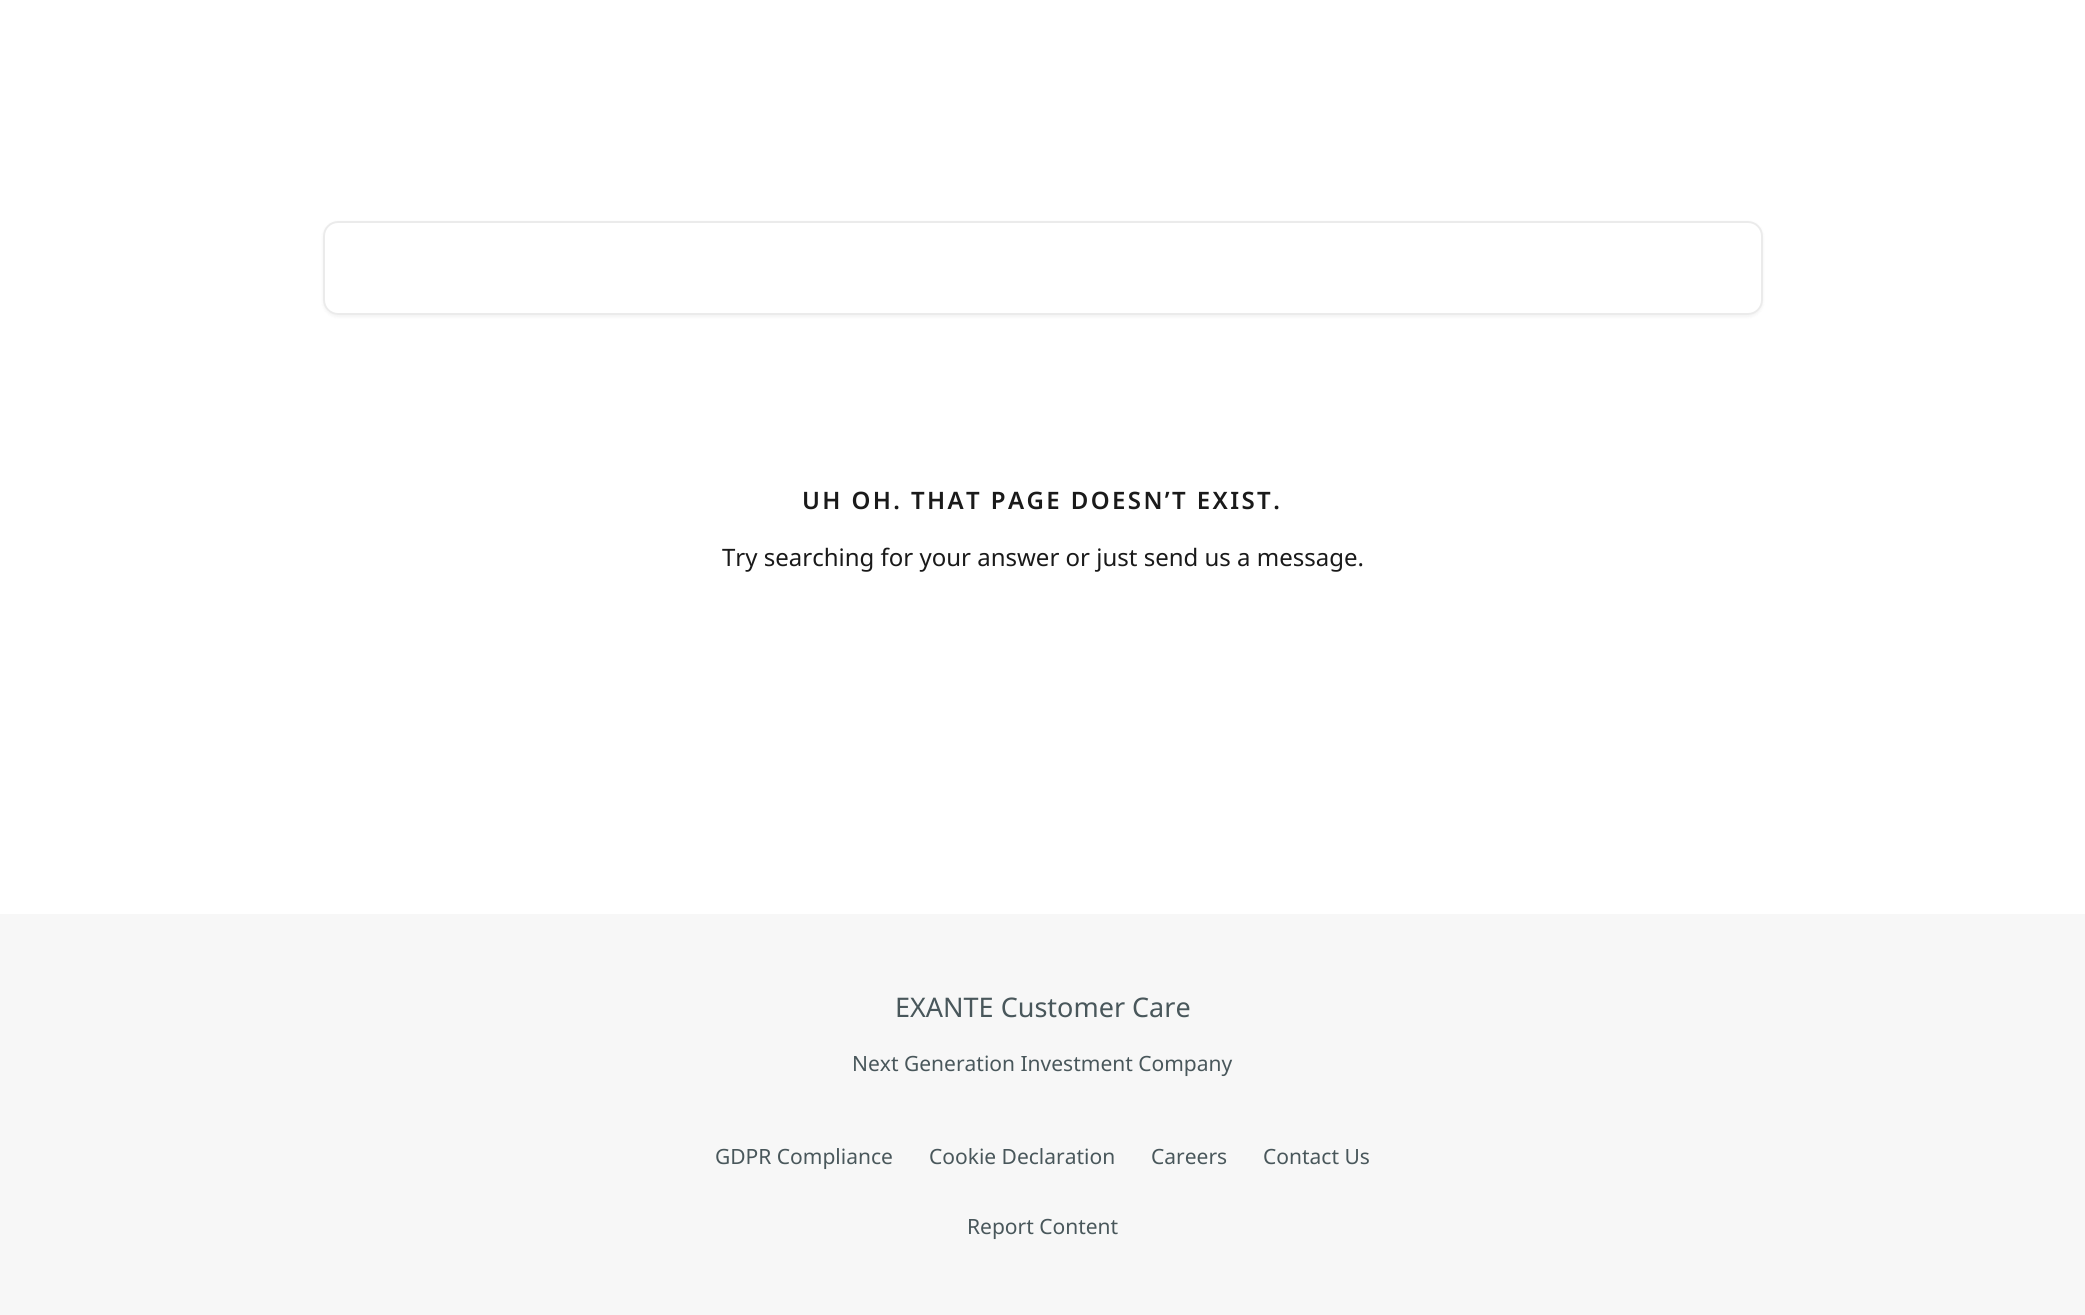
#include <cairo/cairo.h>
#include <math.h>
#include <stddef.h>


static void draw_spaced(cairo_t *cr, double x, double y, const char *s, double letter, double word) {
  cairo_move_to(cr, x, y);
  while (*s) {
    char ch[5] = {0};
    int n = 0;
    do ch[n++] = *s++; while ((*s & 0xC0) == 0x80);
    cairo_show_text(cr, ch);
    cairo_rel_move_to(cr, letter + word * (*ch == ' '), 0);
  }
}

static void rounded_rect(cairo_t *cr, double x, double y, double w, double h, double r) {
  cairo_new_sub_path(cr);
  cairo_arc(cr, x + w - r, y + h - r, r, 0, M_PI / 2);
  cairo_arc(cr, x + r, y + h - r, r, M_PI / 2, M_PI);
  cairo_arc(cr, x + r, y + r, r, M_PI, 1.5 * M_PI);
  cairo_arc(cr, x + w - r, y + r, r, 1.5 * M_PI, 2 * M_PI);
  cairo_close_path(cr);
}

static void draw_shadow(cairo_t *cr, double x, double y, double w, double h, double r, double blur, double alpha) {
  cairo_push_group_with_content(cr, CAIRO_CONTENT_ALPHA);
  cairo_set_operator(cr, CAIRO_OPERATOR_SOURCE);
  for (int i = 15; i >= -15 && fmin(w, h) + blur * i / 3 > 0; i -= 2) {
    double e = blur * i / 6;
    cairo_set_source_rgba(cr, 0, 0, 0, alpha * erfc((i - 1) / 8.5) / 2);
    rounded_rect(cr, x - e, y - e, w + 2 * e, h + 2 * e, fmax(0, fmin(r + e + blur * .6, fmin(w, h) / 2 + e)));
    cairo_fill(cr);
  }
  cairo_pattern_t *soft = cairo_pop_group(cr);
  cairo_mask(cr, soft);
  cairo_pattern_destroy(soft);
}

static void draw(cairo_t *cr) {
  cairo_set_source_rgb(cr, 1, 1, 1);
  cairo_paint(cr);
  cairo_save(cr);
  cairo_set_fill_rule(cr, CAIRO_FILL_RULE_EVEN_ODD);
  cairo_new_path(cr);
  cairo_move_to(cr, 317, 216);
  cairo_line_to(cr, 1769, 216);
  cairo_line_to(cr, 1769, 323);
  cairo_line_to(cr, 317, 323);
  cairo_close_path(cr);
  cairo_move_to(cr, 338, 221);
  cairo_line_to(cr, 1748, 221);
  cairo_curve_to(cr, 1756.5, 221, 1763, 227.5, 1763, 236);
  cairo_line_to(cr, 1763, 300);
  cairo_curve_to(cr, 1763, 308.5, 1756.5, 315, 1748, 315);
  cairo_line_to(cr, 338, 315);
  cairo_curve_to(cr, 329.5, 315, 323, 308.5, 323, 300);
  cairo_line_to(cr, 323, 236);
  cairo_curve_to(cr, 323, 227.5, 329.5, 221, 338, 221);
  cairo_close_path(cr);
  cairo_clip(cr);
  cairo_set_source_rgb(cr, 0, 0, 0);
  draw_shadow(cr, 323, 222, 1440, 95, 15, 1.5, 0.05);
  cairo_restore(cr);
  rounded_rect(cr, 324, 222, 1438, 92, 14);
  cairo_set_source_rgba(cr, 0, 0, 0, 0.08);
  cairo_stroke(cr);
  cairo_set_source_rgb(cr, 247 / 255.0, 247 / 255.0, 247 / 255.0);
  cairo_rectangle(cr, 0, 914, 2085, 401);
  cairo_fill(cr);
  cairo_select_font_face(cr, "Noto Sans SemiBold", CAIRO_FONT_SLANT_NORMAL, CAIRO_FONT_WEIGHT_NORMAL);
  cairo_set_font_size(cr, 24);
  cairo_set_source_rgb(cr, 26 / 255.0, 26 / 255.0, 26 / 255.0);
  draw_spaced(cr, 802, 509, "UH OH. THAT PAGE DOESN’T EXIST.", 2.4, 0);
  cairo_select_font_face(cr, "Noto Sans", CAIRO_FONT_SLANT_NORMAL, CAIRO_FONT_WEIGHT_NORMAL);
  cairo_move_to(cr, 722, 566);
  cairo_show_text(cr, "Try searching for your answer or just send us a message.");
  cairo_set_font_size(cr, 27);
  cairo_set_source_rgb(cr, 73 / 255.0, 87 / 255.0, 91 / 255.0);
  cairo_move_to(cr, 895, 1017);
  cairo_show_text(cr, "EXANTE Customer Care");
  cairo_set_font_size(cr, 21);
  cairo_move_to(cr, 852, 1071);
  cairo_show_text(cr, "Next Generation Investment Company");
  cairo_move_to(cr, 715, 1164);
  cairo_show_text(cr, "GDPR Compliance");
  cairo_move_to(cr, 929, 1164);
  cairo_show_text(cr, "Cookie Declaration");
  cairo_move_to(cr, 1151, 1164);
  cairo_show_text(cr, "Careers");
  cairo_move_to(cr, 1263, 1164);
  cairo_show_text(cr, "Contact Us");
  cairo_move_to(cr, 967, 1234);
  cairo_show_text(cr, "Report Content");
}

int main(void) {
  cairo_surface_t *surface = cairo_image_surface_create(CAIRO_FORMAT_RGB24, 2085, 1315);
  cairo_t *cr = cairo_create(surface);
  cairo_font_options_t *options = cairo_font_options_create();
  cairo_font_options_set_hint_metrics(options, CAIRO_HINT_METRICS_OFF);
  cairo_font_options_set_hint_style(options, CAIRO_HINT_STYLE_NONE);
  cairo_set_font_options(cr, options);
  cairo_set_miter_limit(cr, 4);
  draw(cr);
  cairo_surface_write_to_png(surface, "out.png");
  cairo_font_options_destroy(options);
  cairo_destroy(cr);
  cairo_surface_destroy(surface);
  return 0;
}
